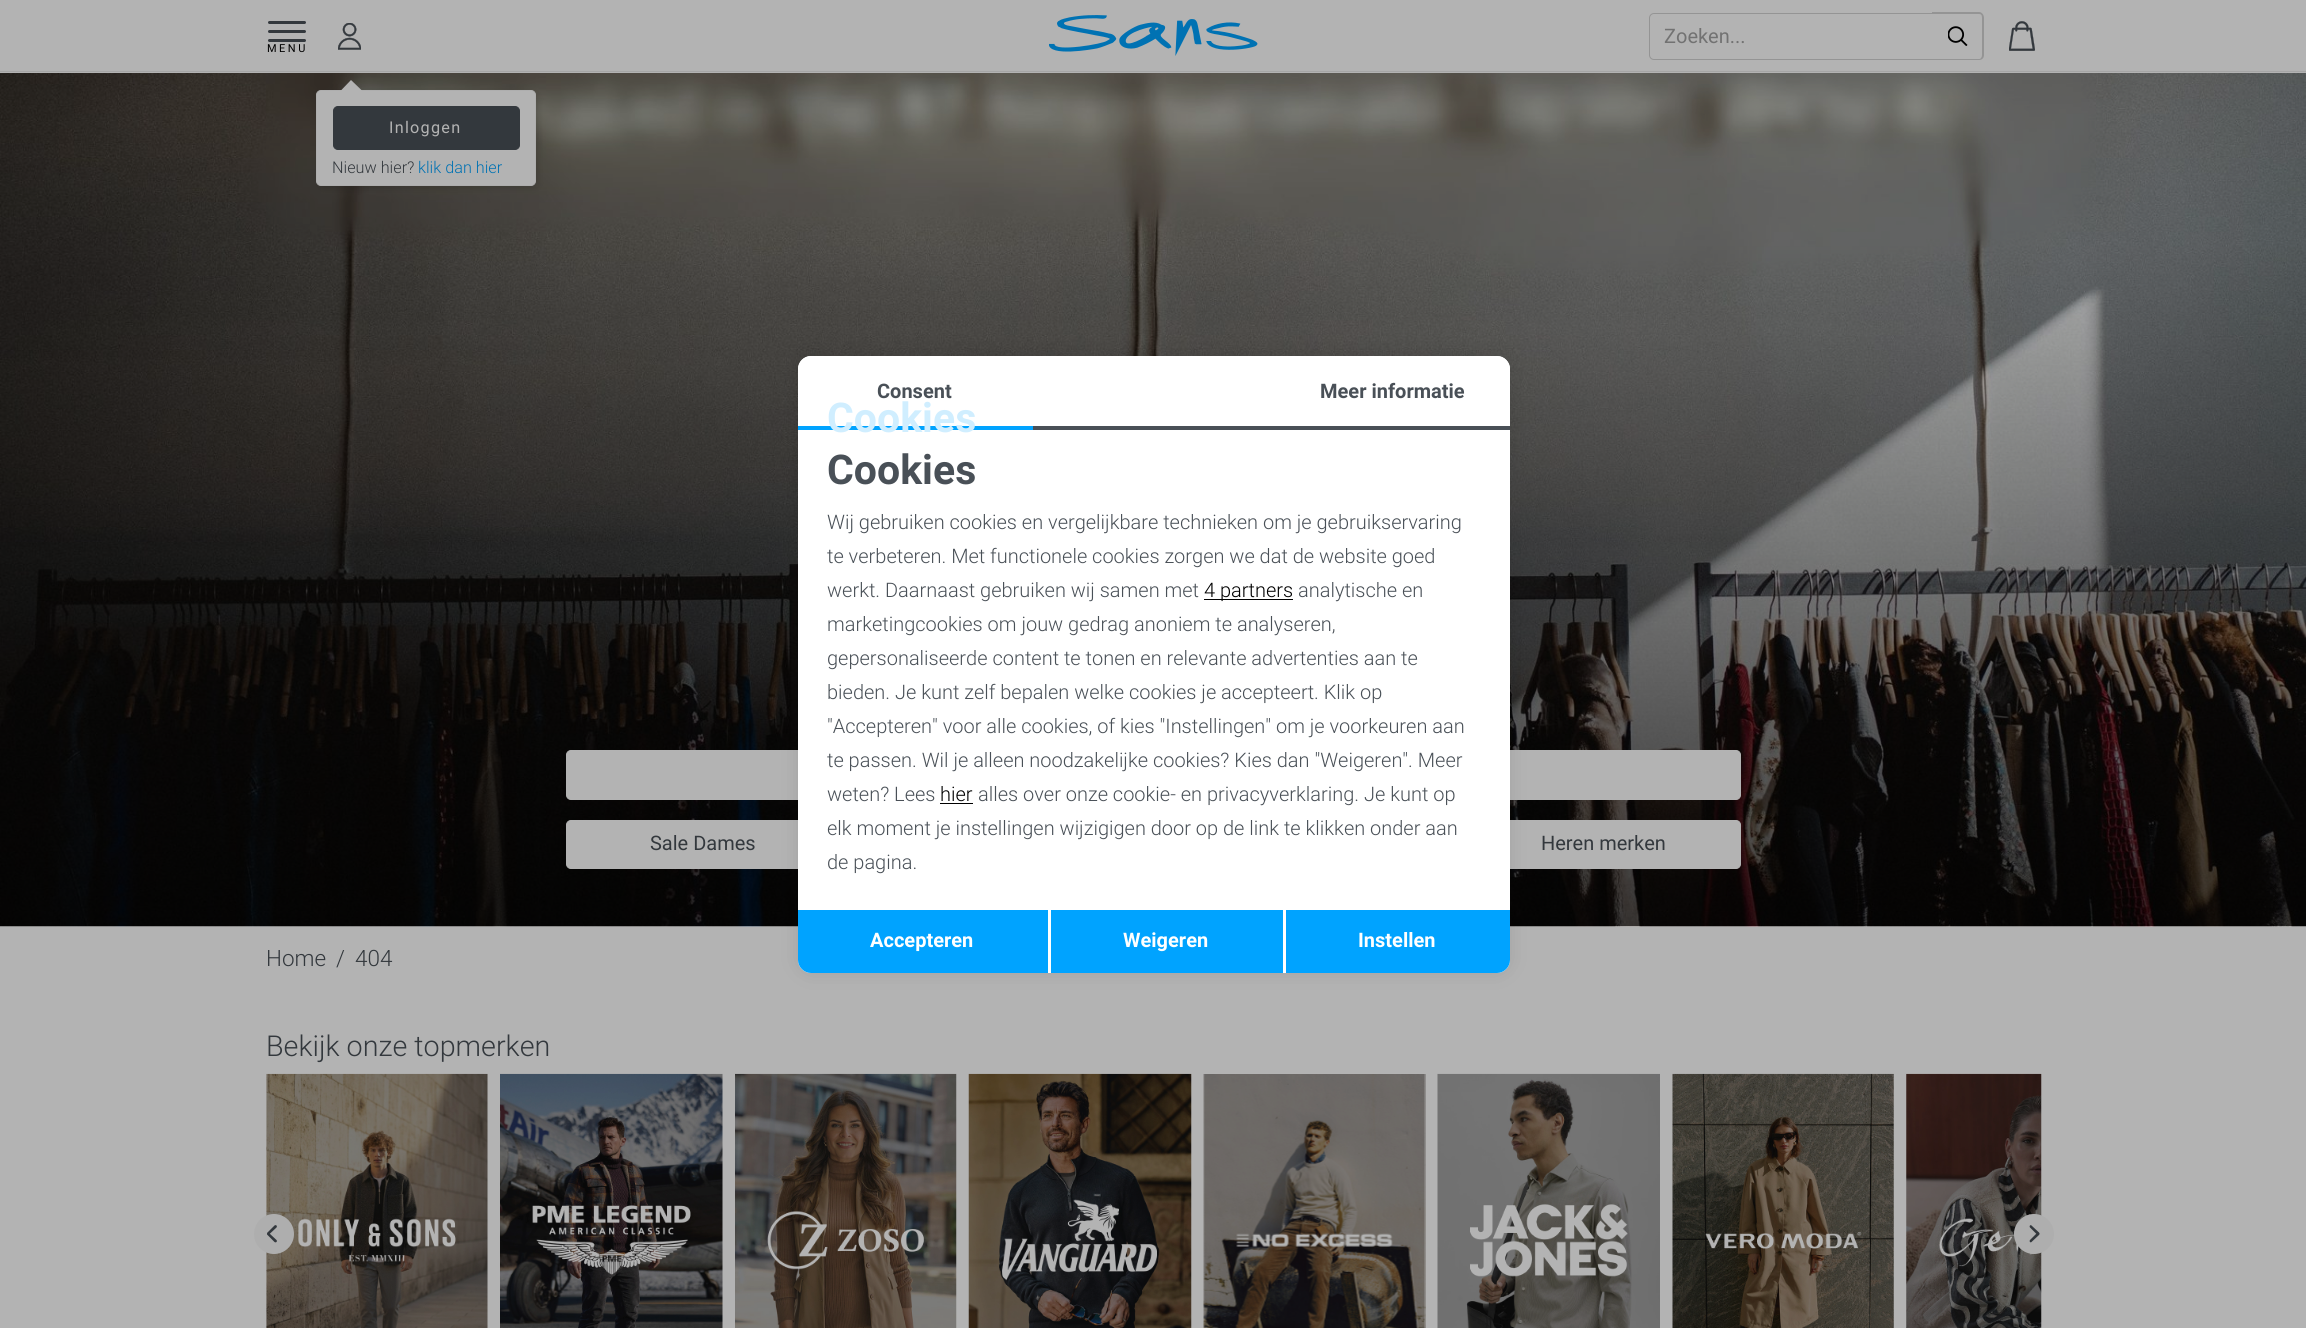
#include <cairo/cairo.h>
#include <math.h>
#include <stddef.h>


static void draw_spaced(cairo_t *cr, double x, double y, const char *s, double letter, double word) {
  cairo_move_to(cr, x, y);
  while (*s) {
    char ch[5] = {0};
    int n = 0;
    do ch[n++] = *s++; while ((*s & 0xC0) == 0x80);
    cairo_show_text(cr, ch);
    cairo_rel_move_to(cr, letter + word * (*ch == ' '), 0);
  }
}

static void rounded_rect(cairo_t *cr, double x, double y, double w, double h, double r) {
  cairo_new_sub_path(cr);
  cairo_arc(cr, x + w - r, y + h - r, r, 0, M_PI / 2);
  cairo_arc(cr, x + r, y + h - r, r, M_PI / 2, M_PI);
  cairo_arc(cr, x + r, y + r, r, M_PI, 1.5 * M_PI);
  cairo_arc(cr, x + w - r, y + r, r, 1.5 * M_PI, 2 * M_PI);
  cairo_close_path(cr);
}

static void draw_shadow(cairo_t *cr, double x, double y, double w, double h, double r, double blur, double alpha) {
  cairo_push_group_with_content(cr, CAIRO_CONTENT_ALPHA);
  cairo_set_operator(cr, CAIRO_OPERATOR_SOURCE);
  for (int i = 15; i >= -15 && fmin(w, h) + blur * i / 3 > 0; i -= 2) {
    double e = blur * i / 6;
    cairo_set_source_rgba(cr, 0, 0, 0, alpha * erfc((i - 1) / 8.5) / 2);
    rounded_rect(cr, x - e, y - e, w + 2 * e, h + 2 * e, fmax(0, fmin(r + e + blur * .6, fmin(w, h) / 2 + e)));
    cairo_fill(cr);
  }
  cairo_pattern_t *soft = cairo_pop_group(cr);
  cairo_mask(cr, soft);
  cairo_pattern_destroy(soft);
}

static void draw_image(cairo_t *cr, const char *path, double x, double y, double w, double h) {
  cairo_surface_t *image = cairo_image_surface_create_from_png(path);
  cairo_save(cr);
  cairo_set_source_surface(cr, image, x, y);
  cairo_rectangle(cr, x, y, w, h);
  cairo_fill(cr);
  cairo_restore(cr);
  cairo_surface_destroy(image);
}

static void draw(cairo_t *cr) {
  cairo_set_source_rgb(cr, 179 / 255.0, 179 / 255.0, 179 / 255.0);
  cairo_paint(cr);
  cairo_set_source_rgb(cr, 165 / 255.0, 165 / 255.0, 165 / 255.0);
  cairo_rectangle(cr, 0, 71, 2306, 1);
  cairo_fill(cr);
  cairo_new_path(cr);
  cairo_move_to(cr, 1654, 13.5);
  cairo_line_to(cr, 1933.5, 13.5);
  cairo_line_to(cr, 1933.5, 59.5);
  cairo_line_to(cr, 1654, 59.5);
  cairo_curve_to(cr, 1651.5, 59.5, 1649.5, 57.5, 1649.5, 55);
  cairo_line_to(cr, 1649.5, 18);
  cairo_curve_to(cr, 1649.5, 15.5, 1651.5, 13.5, 1654, 13.5);
  cairo_close_path(cr);
  cairo_set_source_rgb(cr, 148 / 255.0, 148 / 255.0, 148 / 255.0);
  cairo_set_line_width(cr, 1);
  cairo_stroke(cr);
  cairo_set_source_rgb(cr, 179 / 255.0, 179 / 255.0, 179 / 255.0);
  cairo_new_path(cr);
  cairo_move_to(cr, 1933, 14);
  cairo_line_to(cr, 1979, 14);
  cairo_curve_to(cr, 1981, 14, 1983, 16, 1983, 18);
  cairo_line_to(cr, 1983, 55);
  cairo_curve_to(cr, 1983, 57, 1981, 59, 1979, 59);
  cairo_line_to(cr, 1933, 59);
  cairo_close_path(cr);
  cairo_fill(cr);
  cairo_set_source_rgb(cr, 148 / 255.0, 148 / 255.0, 148 / 255.0);
  cairo_set_fill_rule(cr, CAIRO_FILL_RULE_EVEN_ODD);
  cairo_new_path(cr);
  cairo_move_to(cr, 1932, 12);
  cairo_line_to(cr, 1979, 12);
  cairo_curve_to(cr, 1982, 12, 1984, 15, 1984, 18);
  cairo_line_to(cr, 1984, 55);
  cairo_curve_to(cr, 1984, 58, 1982, 60, 1979, 60);
  cairo_line_to(cr, 1932, 60);
  cairo_close_path(cr);
  cairo_move_to(cr, 1932, 14);
  cairo_line_to(cr, 1979, 14);
  cairo_curve_to(cr, 1981, 14, 1982, 15, 1982, 18);
  cairo_line_to(cr, 1982, 55);
  cairo_curve_to(cr, 1982, 57, 1981, 59, 1979, 59);
  cairo_line_to(cr, 1932, 59);
  cairo_close_path(cr);
  cairo_fill(cr);
  draw_image(cr, "images/1.png", 1948, 26, 20, 20);
  draw_image(cr, "images/2.png", 2009, 21, 26, 30);
  cairo_set_source_rgb(cr, 51 / 255.0, 56 / 255.0, 61 / 255.0);
  rounded_rect(cr, 268, 21, 38, 3, 1.5);
  cairo_fill(cr);
  rounded_rect(cr, 268, 30, 38, 3, 1.5);
  cairo_fill(cr);
  rounded_rect(cr, 268, 39, 38, 3, 1.5);
  cairo_fill(cr);
  draw_image(cr, "images/3.png", 338, 23, 23, 27);
  draw_image(cr, "images/4.png", 1049, 15, 209, 41);
  draw_image(cr, "images/5.png", 0, 73, 2306, 854);
  cairo_set_source_rgb(cr, 0, 0, 0);
  draw_shadow(cr, 319, 93, 220, 96, 5, 3, 0.1);
  cairo_set_source_rgb(cr, 179 / 255.0, 179 / 255.0, 179 / 255.0);
  rounded_rect(cr, 316.5, 90.5, 219, 95, 4.5);
  cairo_fill_preserve(cr);
  cairo_set_source_rgb(cr, 174 / 255.0, 174 / 255.0, 174 / 255.0);
  cairo_stroke(cr);
  cairo_set_source_rgb(cr, 179 / 255.0, 179 / 255.0, 179 / 255.0);
  cairo_set_fill_rule(cr, CAIRO_FILL_RULE_WINDING);
  cairo_new_path(cr);
  cairo_move_to(cr, 364, 92.5);
  cairo_line_to(cr, 339, 92.5);
  cairo_line_to(cr, 351, 80);
  cairo_close_path(cr);
  cairo_fill(cr);
  cairo_set_source_rgb(cr, 51 / 255.0, 56 / 255.0, 61 / 255.0);
  rounded_rect(cr, 333.5, 106.5, 186, 43, 4.5);
  cairo_fill_preserve(cr);
  cairo_stroke(cr);
  cairo_set_source_rgb(cr, 179 / 255.0, 179 / 255.0, 179 / 255.0);
  rounded_rect(cr, 566.5, 750.5, 574, 49, 4.5);
  cairo_fill_preserve(cr);
  cairo_stroke(cr);
  rounded_rect(cr, 1166.5, 750.5, 574, 49, 4.5);
  cairo_fill_preserve(cr);
  cairo_stroke(cr);
  rounded_rect(cr, 566.5, 820.5, 274, 48, 4.5);
  cairo_fill_preserve(cr);
  cairo_stroke(cr);
  rounded_rect(cr, 1466.5, 820.5, 274, 48, 4.5);
  cairo_fill_preserve(cr);
  cairo_stroke(cr);
  cairo_set_source_rgb(cr, 0, 0, 0);
  draw_shadow(cr, 798, 356, 712, 617, 13, 9.5, 0.1);
  cairo_set_source_rgb(cr, 1, 1, 1);
  rounded_rect(cr, 798, 356, 712, 617, 13);
  cairo_fill(cr);
  cairo_set_source_rgb(cr, 73 / 255.0, 80 / 255.0, 87 / 255.0);
  cairo_rectangle(cr, 1033, 426, 241, 4);
  cairo_fill(cr);
  cairo_set_source_rgb(cr, 1, 1, 1);
  cairo_new_path(cr);
  cairo_move_to(cr, 811, 356);
  cairo_line_to(cr, 1033, 356);
  cairo_line_to(cr, 1033, 430);
  cairo_line_to(cr, 798, 430);
  cairo_line_to(cr, 798, 369);
  cairo_curve_to(cr, 798, 362, 804, 356, 811, 356);
  cairo_close_path(cr);
  cairo_fill(cr);
  cairo_set_source_rgb(cr, 0, 163 / 255.0, 1);
  cairo_rectangle(cr, 798, 426, 235, 4);
  cairo_fill(cr);
  cairo_set_source_rgb(cr, 1, 1, 1);
  cairo_new_path(cr);
  cairo_move_to(cr, 1274, 356);
  cairo_line_to(cr, 1497, 356);
  cairo_curve_to(cr, 1504, 356, 1510, 362, 1510, 369);
  cairo_line_to(cr, 1510, 430);
  cairo_line_to(cr, 1274, 430);
  cairo_close_path(cr);
  cairo_fill(cr);
  cairo_set_source_rgb(cr, 73 / 255.0, 80 / 255.0, 87 / 255.0);
  cairo_rectangle(cr, 1274, 426, 236, 4);
  cairo_fill(cr);
  cairo_set_source_rgb(cr, 0, 0, 0);
  cairo_rectangle(cr, 1204, 599, 89, 1);
  cairo_fill(cr);
  cairo_rectangle(cr, 940, 803, 33, 1);
  cairo_fill(cr);
  cairo_set_source_rgb(cr, 0, 163 / 255.0, 1);
  cairo_new_path(cr);
  cairo_move_to(cr, 798, 910);
  cairo_line_to(cr, 1048, 910);
  cairo_line_to(cr, 1048, 973);
  cairo_line_to(cr, 811, 973);
  cairo_curve_to(cr, 804, 973, 798, 967, 798, 960);
  cairo_close_path(cr);
  cairo_fill(cr);
  cairo_rectangle(cr, 1051, 910, 232, 63);
  cairo_fill(cr);
  cairo_new_path(cr);
  cairo_move_to(cr, 1283, 910);
  cairo_line_to(cr, 1510, 910);
  cairo_line_to(cr, 1510, 960);
  cairo_curve_to(cr, 1510, 967, 1504, 973, 1497, 973);
  cairo_line_to(cr, 1283, 973);
  cairo_close_path(cr);
  cairo_fill(cr);
  cairo_set_source_rgb(cr, 1, 1, 1);
  cairo_rectangle(cr, 1283, 910, 3, 63);
  cairo_fill(cr);
  draw_image(cr, "images/6.png", 266, 1073, 222, 255);
  draw_image(cr, "images/7.png", 500, 1073, 223, 255);
  draw_image(cr, "images/8.png", 735, 1073, 222, 255);
  draw_image(cr, "images/9.png", 968, 1073, 224, 255);
  draw_image(cr, "images/10.png", 1203, 1074, 223, 254);
  draw_image(cr, "images/11.png", 1437, 1073, 223, 255);
  draw_image(cr, "images/12.png", 1672, 1073, 222, 255);
  draw_image(cr, "images/13.png", 1906, 1073, 136, 255);
  cairo_set_source_rgb(cr, 174 / 255.0, 174 / 255.0, 174 / 255.0);
  cairo_arc(cr, 274, 1234, 20, 0, 2 * M_PI);
  cairo_fill(cr);
  cairo_set_source_rgb(cr, 51 / 255.0, 56 / 255.0, 61 / 255.0);
  cairo_new_path(cr);
  cairo_move_to(cr, 269, 1233);
  cairo_line_to(cr, 276.5, 1240);
  cairo_curve_to(cr, 277, 1240.5, 277, 1241.5, 276.5, 1242);
  cairo_curve_to(cr, 276, 1242.5, 275, 1242.5, 274.5, 1242);
  cairo_line_to(cr, 267.5, 1235);
  cairo_curve_to(cr, 267, 1234.5, 267, 1233.5, 267.5, 1233);
  cairo_curve_to(cr, 268, 1232.5, 268.5, 1232.5, 269, 1233);
  cairo_close_path(cr);
  cairo_fill(cr);
  cairo_new_path(cr);
  cairo_move_to(cr, 267.5, 1232.5);
  cairo_line_to(cr, 274.5, 1225.5);
  cairo_curve_to(cr, 275, 1225, 276, 1225, 276.5, 1225.5);
  cairo_curve_to(cr, 277, 1226, 277, 1227, 276.5, 1227.5);
  cairo_line_to(cr, 269, 1234.5);
  cairo_curve_to(cr, 268.5, 1235, 268, 1235, 267.5, 1234.5);
  cairo_curve_to(cr, 267, 1234, 267, 1233, 267.5, 1232.5);
  cairo_close_path(cr);
  cairo_fill(cr);
  cairo_set_source_rgb(cr, 174 / 255.0, 174 / 255.0, 174 / 255.0);
  cairo_arc(cr, 2034, 1234, 20, 0, 2 * M_PI);
  cairo_fill(cr);
  cairo_set_source_rgb(cr, 51 / 255.0, 56 / 255.0, 61 / 255.0);
  cairo_new_path(cr);
  cairo_move_to(cr, 2030, 1240);
  cairo_line_to(cr, 2037, 1233);
  cairo_curve_to(cr, 2037.5, 1232.5, 2038.5, 1232.5, 2039, 1233);
  cairo_curve_to(cr, 2039.5, 1233.5, 2039.5, 1234.5, 2039, 1235);
  cairo_line_to(cr, 2031.5, 1242);
  cairo_curve_to(cr, 2031, 1242.5, 2030.5, 1242.5, 2030, 1242);
  cairo_curve_to(cr, 2029.5, 1241.5, 2029.5, 1240.5, 2030, 1240);
  cairo_close_path(cr);
  cairo_fill(cr);
  cairo_new_path(cr);
  cairo_move_to(cr, 2031.5, 1225.5);
  cairo_line_to(cr, 2039, 1232.5);
  cairo_curve_to(cr, 2039.5, 1233, 2039.5, 1234, 2039, 1234.5);
  cairo_curve_to(cr, 2038.5, 1235, 2037.5, 1235, 2037, 1234.5);
  cairo_line_to(cr, 2030, 1227.5);
  cairo_curve_to(cr, 2029.5, 1227, 2029.5, 1226, 2030, 1225.5);
  cairo_curve_to(cr, 2030.5, 1225, 2031, 1225, 2031.5, 1225.5);
  cairo_close_path(cr);
  cairo_fill(cr);
  cairo_select_font_face(cr, "Roboto", CAIRO_FONT_SLANT_NORMAL, CAIRO_FONT_WEIGHT_NORMAL);
  cairo_set_font_size(cr, 20);
  cairo_set_source_rgb(cr, 114 / 255.0, 114 / 255.0, 114 / 255.0);
  cairo_move_to(cr, 1664, 43);
  cairo_show_text(cr, "Zoeken...");
  cairo_set_font_size(cr, 11);
  cairo_set_source_rgb(cr, 0, 0, 0);
  draw_spaced(cr, 267, 52, "MENU", 2.5, 0);
  cairo_set_font_size(cr, 16.25);
  cairo_set_source_rgb(cr, 179 / 255.0, 179 / 255.0, 179 / 255.0);
  draw_spaced(cr, 389, 133, "Inloggen", 1.25, 0);
  cairo_select_font_face(cr, "Roboto Light", CAIRO_FONT_SLANT_NORMAL, CAIRO_FONT_WEIGHT_NORMAL);
  cairo_set_source_rgb(cr, 51 / 255.0, 56 / 255.0, 61 / 255.0);
  cairo_move_to(cr, 332, 173);
  cairo_show_text(cr, "Nieuw hier?");
  cairo_set_source_rgb(cr, 0, 114 / 255.0, 179 / 255.0);
  cairo_move_to(cr, 418, 173);
  cairo_show_text(cr, "klik dan hier");
  cairo_select_font_face(cr, "Roboto", CAIRO_FONT_SLANT_NORMAL, CAIRO_FONT_WEIGHT_BOLD);
  cairo_set_font_size(cr, 20);
  cairo_set_source_rgb(cr, 73 / 255.0, 80 / 255.0, 87 / 255.0);
  cairo_move_to(cr, 877, 398);
  cairo_show_text(cr, "Consent");
  cairo_move_to(cr, 1320, 398);
  cairo_show_text(cr, "Meer informatie");
  cairo_set_font_size(cr, 41);
  cairo_set_source_rgb(cr, 208 / 255.0, 238 / 255.0, 1);
  cairo_move_to(cr, 827, 432);
  cairo_show_text(cr, "Cookies");
  cairo_set_source_rgb(cr, 73 / 255.0, 80 / 255.0, 87 / 255.0);
  cairo_move_to(cr, 827, 484);
  cairo_show_text(cr, "Cookies");
  cairo_select_font_face(cr, "Roboto Light", CAIRO_FONT_SLANT_NORMAL, CAIRO_FONT_WEIGHT_NORMAL);
  cairo_set_font_size(cr, 20);
  cairo_move_to(cr, 827, 529);
  cairo_show_text(cr, "Wij gebruiken cookies en vergelijkbare technieken om je gebruikservaring");
  cairo_move_to(cr, 827, 563);
  cairo_show_text(cr, "te verbeteren. Met functionele cookies zorgen we dat de website goed");
  cairo_move_to(cr, 827, 597);
  cairo_show_text(cr, "werkt. Daarnaast gebruiken wij samen met");
  cairo_set_source_rgb(cr, 0, 0, 0);
  cairo_move_to(cr, 1204, 597);
  cairo_show_text(cr, "4 partners");
  cairo_set_source_rgb(cr, 73 / 255.0, 80 / 255.0, 87 / 255.0);
  cairo_move_to(cr, 1298, 597);
  cairo_show_text(cr, "analytische en");
  cairo_move_to(cr, 827, 631);
  cairo_show_text(cr, "marketingcookies om jouw gedrag anoniem te analyseren,");
  cairo_move_to(cr, 827, 665);
  cairo_show_text(cr, "gepersonaliseerde content te tonen en relevante advertenties aan te");
  cairo_move_to(cr, 827, 699);
  cairo_show_text(cr, "bieden. Je kunt zelf bepalen welke cookies je accepteert. Klik op");
  cairo_move_to(cr, 827, 733);
  cairo_show_text(cr, "\"Accepteren\" voor alle cookies, of kies \"Instellingen\" om je voorkeuren aan");
  cairo_move_to(cr, 827, 767);
  cairo_show_text(cr, "te passen. Wil je alleen noodzakelijke cookies? Kies dan \"Weigeren\". Meer");
  cairo_move_to(cr, 827, 801);
  cairo_show_text(cr, "weten? Lees");
  cairo_set_source_rgb(cr, 0, 0, 0);
  cairo_move_to(cr, 940, 801);
  cairo_show_text(cr, "hier");
  cairo_set_source_rgb(cr, 73 / 255.0, 80 / 255.0, 87 / 255.0);
  cairo_move_to(cr, 978, 801);
  cairo_show_text(cr, "alles over onze cookie- en privacyverklaring. Je kunt op");
  cairo_move_to(cr, 827, 835);
  cairo_show_text(cr, "elk moment je instellingen wijzigigen door op de link te klikken onder aan");
  cairo_move_to(cr, 827, 869);
  cairo_show_text(cr, "de pagina.");
  cairo_select_font_face(cr, "Roboto", CAIRO_FONT_SLANT_NORMAL, CAIRO_FONT_WEIGHT_BOLD);
  cairo_set_source_rgb(cr, 1, 1, 1);
  cairo_move_to(cr, 870, 947);
  cairo_show_text(cr, "Accepteren");
  cairo_move_to(cr, 1123, 947);
  cairo_show_text(cr, "Weigeren");
  cairo_move_to(cr, 1358, 947);
  cairo_show_text(cr, "Instellen");
  cairo_select_font_face(cr, "Roboto", CAIRO_FONT_SLANT_NORMAL, CAIRO_FONT_WEIGHT_NORMAL);
  cairo_set_source_rgb(cr, 51 / 255.0, 56 / 255.0, 61 / 255.0);
  cairo_move_to(cr, 650, 850);
  cairo_show_text(cr, "Sale Dames");
  cairo_move_to(cr, 1541, 850);
  cairo_show_text(cr, "Heren merken");
  cairo_select_font_face(cr, "Roboto Light", CAIRO_FONT_SLANT_NORMAL, CAIRO_FONT_WEIGHT_NORMAL);
  cairo_set_font_size(cr, 22.5);
  cairo_move_to(cr, 266, 966);
  cairo_show_text(cr, "Home");
  cairo_move_to(cr, 336, 966);
  cairo_show_text(cr, "/");
  cairo_move_to(cr, 355, 966);
  cairo_show_text(cr, "404");
  cairo_set_font_size(cr, 28.75);
  cairo_move_to(cr, 266, 1056);
  cairo_show_text(cr, "Bekijk onze topmerken");
}

int main(void) {
  cairo_surface_t *surface = cairo_image_surface_create(CAIRO_FORMAT_RGB24, 2306, 1328);
  cairo_t *cr = cairo_create(surface);
  cairo_font_options_t *options = cairo_font_options_create();
  cairo_font_options_set_hint_metrics(options, CAIRO_HINT_METRICS_OFF);
  cairo_font_options_set_hint_style(options, CAIRO_HINT_STYLE_NONE);
  cairo_set_font_options(cr, options);
  cairo_set_miter_limit(cr, 4);
  draw(cr);
  cairo_surface_write_to_png(surface, "out.png");
  cairo_font_options_destroy(options);
  cairo_destroy(cr);
  cairo_surface_destroy(surface);
  return 0;
}
